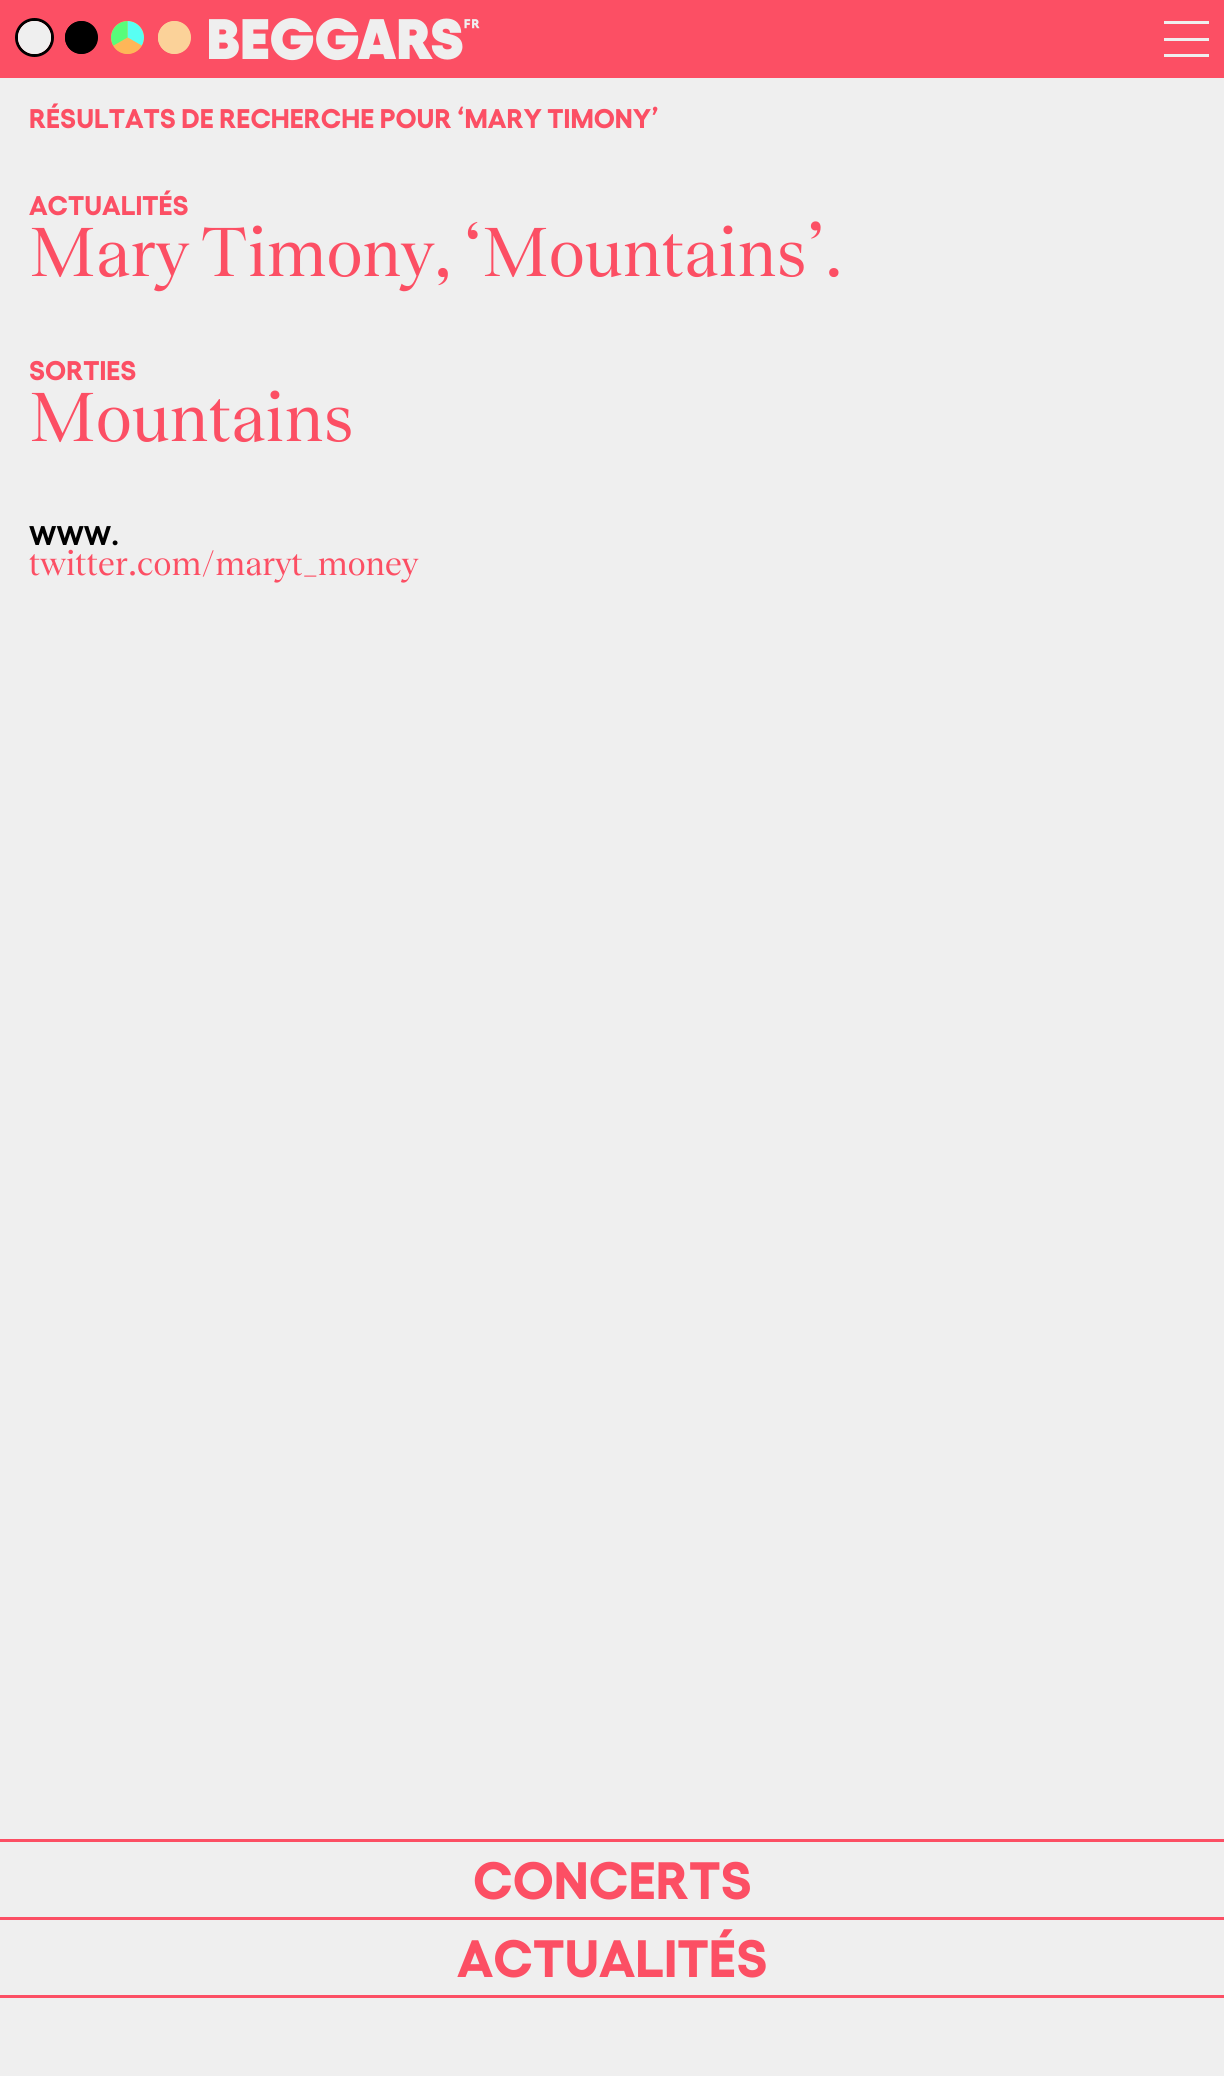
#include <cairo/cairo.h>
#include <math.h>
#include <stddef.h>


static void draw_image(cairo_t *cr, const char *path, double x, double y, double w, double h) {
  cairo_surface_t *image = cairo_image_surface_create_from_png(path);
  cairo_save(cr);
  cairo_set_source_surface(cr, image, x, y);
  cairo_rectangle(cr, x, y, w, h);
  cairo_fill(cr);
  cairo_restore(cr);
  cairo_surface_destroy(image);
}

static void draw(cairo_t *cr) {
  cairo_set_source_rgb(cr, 239 / 255.0, 239 / 255.0, 239 / 255.0);
  cairo_paint(cr);
  cairo_set_source_rgb(cr, 252 / 255.0, 79 / 255.0, 100 / 255.0);
  cairo_rectangle(cr, 0, 0, 1224, 78);
  cairo_fill(cr);
  cairo_arc(cr, 34.5, 37.5, 18, 0, 2 * M_PI);
  cairo_set_source_rgb(cr, 0, 0, 0);
  cairo_set_line_width(cr, 3);
  cairo_stroke(cr);
  cairo_set_source_rgb(cr, 239 / 255.0, 239 / 255.0, 239 / 255.0);
  cairo_arc(cr, 34.5, 37.5, 16.5, 0, 2 * M_PI);
  cairo_fill(cr);
  draw_image(cr, "images/1.png", 18, 21, 33, 33);
  cairo_set_source_rgb(cr, 0, 0, 0);
  cairo_arc(cr, 81.5, 37.5, 16.5, 0, 2 * M_PI);
  cairo_fill(cr);
  draw_image(cr, "images/2.png", 65, 21, 33, 33);
  cairo_set_source_rgb(cr, 254 / 255.0, 182 / 255.0, 88 / 255.0);
  cairo_arc(cr, 127.5, 37.5, 16.5, 0, 2 * M_PI);
  cairo_fill(cr);
  draw_image(cr, "images/3.png", 111, 21, 33, 33);
  cairo_set_source_rgb(cr, 251 / 255.0, 210 / 255.0, 153 / 255.0);
  cairo_arc(cr, 174.5, 37.5, 16.5, 0, 2 * M_PI);
  cairo_fill(cr);
  draw_image(cr, "images/4.png", 158, 21, 33, 33);
  draw_image(cr, "images/5.png", 209, 18, 271, 43);
  cairo_set_source_rgb(cr, 239 / 255.0, 239 / 255.0, 239 / 255.0);
  cairo_rectangle(cr, 1164, 38, 45, 3);
  cairo_fill(cr);
  cairo_rectangle(cr, 1164, 21, 45, 3);
  cairo_fill(cr);
  cairo_rectangle(cr, 1164, 54, 45, 3);
  cairo_fill(cr);
  cairo_set_source_rgb(cr, 252 / 255.0, 79 / 255.0, 100 / 255.0);
  cairo_rectangle(cr, 0, 1839, 1224, 3);
  cairo_fill(cr);
  cairo_rectangle(cr, 0, 1917, 1224, 3);
  cairo_fill(cr);
  cairo_rectangle(cr, 0, 1995, 1224, 3);
  cairo_fill(cr);
  cairo_select_font_face(cr, "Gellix", CAIRO_FONT_SLANT_NORMAL, CAIRO_FONT_WEIGHT_BOLD);
  cairo_set_font_size(cr, 27);
  cairo_move_to(cr, 29, 128);
  cairo_show_text(cr, "RÉSULTATS DE RECHERCHE POUR ‘MARY TIMONY’");
  cairo_move_to(cr, 29, 215);
  cairo_show_text(cr, "ACTUALITÉS");
  cairo_select_font_face(cr, "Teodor", CAIRO_FONT_SLANT_NORMAL, CAIRO_FONT_WEIGHT_NORMAL);
  cairo_set_font_size(cr, 72);
  cairo_move_to(cr, 29, 276);
  cairo_show_text(cr, "Mary Timony, ‘Mountains’.");
  cairo_select_font_face(cr, "Gellix", CAIRO_FONT_SLANT_NORMAL, CAIRO_FONT_WEIGHT_BOLD);
  cairo_set_font_size(cr, 27);
  cairo_move_to(cr, 29, 380);
  cairo_show_text(cr, "SORTIES");
  cairo_select_font_face(cr, "Teodor", CAIRO_FONT_SLANT_NORMAL, CAIRO_FONT_WEIGHT_NORMAL);
  cairo_set_font_size(cr, 72);
  cairo_move_to(cr, 29, 441);
  cairo_show_text(cr, "Mountains");
  cairo_select_font_face(cr, "Gellix", CAIRO_FONT_SLANT_NORMAL, CAIRO_FONT_WEIGHT_BOLD);
  cairo_set_font_size(cr, 27);
  cairo_set_source_rgb(cr, 0, 0, 0);
  cairo_move_to(cr, 29, 545);
  cairo_show_text(cr, "WWW.");
  cairo_select_font_face(cr, "Teodor", CAIRO_FONT_SLANT_NORMAL, CAIRO_FONT_WEIGHT_NORMAL);
  cairo_set_font_size(cr, 36);
  cairo_set_source_rgb(cr, 252 / 255.0, 79 / 255.0, 100 / 255.0);
  cairo_move_to(cr, 29, 575);
  cairo_show_text(cr, "twitter.com/maryt_money");
  cairo_select_font_face(cr, "Gellix", CAIRO_FONT_SLANT_NORMAL, CAIRO_FONT_WEIGHT_BOLD);
  cairo_set_font_size(cr, 52.5);
  cairo_move_to(cr, 473, 1899);
  cairo_show_text(cr, "CONCERTS");
  cairo_move_to(cr, 457, 1977);
  cairo_show_text(cr, "ACTUALITÉS");
}

int main(void) {
  cairo_surface_t *surface = cairo_image_surface_create(CAIRO_FORMAT_RGB24, 1224, 2076);
  cairo_t *cr = cairo_create(surface);
  cairo_font_options_t *options = cairo_font_options_create();
  cairo_font_options_set_hint_metrics(options, CAIRO_HINT_METRICS_OFF);
  cairo_font_options_set_hint_style(options, CAIRO_HINT_STYLE_NONE);
  cairo_set_font_options(cr, options);
  cairo_set_miter_limit(cr, 4);
  draw(cr);
  cairo_surface_write_to_png(surface, "out.png");
  cairo_font_options_destroy(options);
  cairo_destroy(cr);
  cairo_surface_destroy(surface);
  return 0;
}
